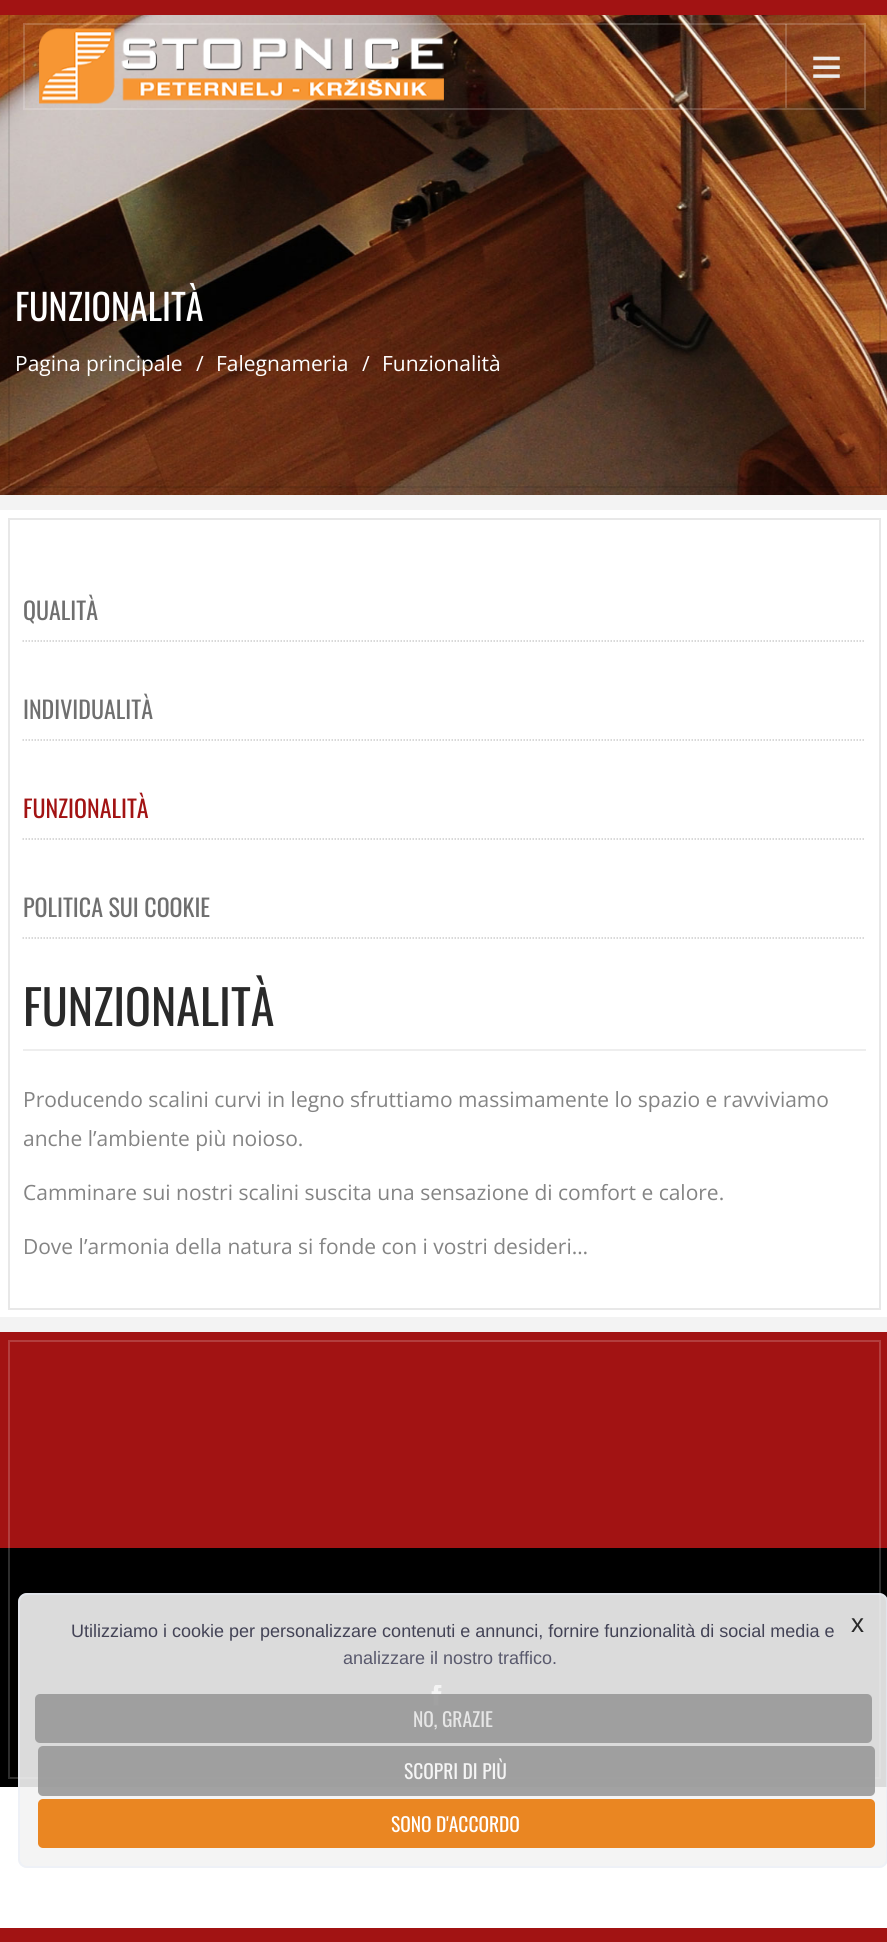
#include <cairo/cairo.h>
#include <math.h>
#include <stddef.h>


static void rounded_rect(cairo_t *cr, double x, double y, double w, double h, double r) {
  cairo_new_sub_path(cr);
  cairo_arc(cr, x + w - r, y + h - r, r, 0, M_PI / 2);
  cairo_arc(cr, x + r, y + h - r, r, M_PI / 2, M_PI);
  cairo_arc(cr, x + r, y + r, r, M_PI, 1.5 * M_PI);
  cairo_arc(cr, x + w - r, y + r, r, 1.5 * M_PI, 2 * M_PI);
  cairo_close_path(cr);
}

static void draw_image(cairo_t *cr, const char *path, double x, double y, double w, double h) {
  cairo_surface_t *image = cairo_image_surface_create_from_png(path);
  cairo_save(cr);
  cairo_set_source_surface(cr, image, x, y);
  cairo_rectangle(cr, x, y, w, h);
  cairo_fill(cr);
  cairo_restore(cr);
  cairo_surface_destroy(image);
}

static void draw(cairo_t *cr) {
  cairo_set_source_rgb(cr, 1, 1, 1);
  cairo_paint(cr);
  draw_image(cr, "images/3.png", 0, 15, 887, 480);
  cairo_rectangle(cr, 9, 9, 871, 478);
  cairo_set_source_rgba(cr, 0, 0, 0, 0.09);
  cairo_stroke(cr);
  cairo_set_source_rgb(cr, 162 / 255.0, 19 / 255.0, 19 / 255.0);
  cairo_rectangle(cr, 0, 0, 887, 15);
  cairo_fill(cr);
  cairo_rectangle(cr, 24, 24, 841, 85);
  cairo_set_source_rgba(cr, 1, 1, 1, 0.18);
  cairo_stroke(cr);
  draw_image(cr, "images/1.png", 39, 28, 405, 76);
  cairo_rectangle(cr, 785, 24, 2, 84);
  cairo_fill(cr);
  draw_image(cr, "images/2.png", 813, 56, 27, 22);
  cairo_rectangle(cr, -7.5, 502.5, 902, 822);
  cairo_set_source_rgb(cr, 243 / 255.0, 243 / 255.0, 243 / 255.0);
  cairo_set_line_width(cr, 15);
  cairo_stroke(cr);
  cairo_rectangle(cr, 9, 519, 871, 790);
  cairo_set_source_rgb(cr, 232 / 255.0, 232 / 255.0, 232 / 255.0);
  cairo_set_line_width(cr, 2);
  cairo_stroke(cr);
  cairo_new_path(cr);
  cairo_move_to(cr, 22.5, 641);
  cairo_line_to(cr, 865.5, 641);
  cairo_set_source_rgb(cr, 204 / 255.0, 204 / 255.0, 204 / 255.0);
  cairo_set_line_width(cr, 1.5);
  cairo_set_dash(cr, (double[]){1.5, 1.5}, 2, 0);
  cairo_stroke(cr);
  cairo_new_path(cr);
  cairo_move_to(cr, 22.5, 740);
  cairo_line_to(cr, 865.5, 740);
  cairo_stroke(cr);
  cairo_new_path(cr);
  cairo_move_to(cr, 22.5, 839);
  cairo_line_to(cr, 865.5, 839);
  cairo_stroke(cr);
  cairo_new_path(cr);
  cairo_move_to(cr, 22.5, 938);
  cairo_line_to(cr, 865.5, 938);
  cairo_stroke(cr);
  cairo_set_source_rgb(cr, 238 / 255.0, 238 / 255.0, 238 / 255.0);
  cairo_rectangle(cr, 23, 1049, 843, 2);
  cairo_fill(cr);
  cairo_set_source_rgb(cr, 162 / 255.0, 19 / 255.0, 19 / 255.0);
  cairo_rectangle(cr, 0, 1332, 887, 216);
  cairo_fill(cr);
  cairo_set_source_rgb(cr, 0, 0, 0);
  cairo_rectangle(cr, 0, 1548, 887, 239);
  cairo_fill(cr);
  cairo_rectangle(cr, 9, 1341, 871, 437);
  cairo_set_source_rgba(cr, 1, 1, 1, 0.18);
  cairo_set_line_width(cr, 2);
  cairo_set_dash(cr, NULL, 0, 0);
  cairo_stroke(cr);
  draw_image(cr, "images/4.png", 431, 1685, 11, 21);
  cairo_set_source_rgba(cr, 243 / 255.0, 243 / 255.0, 243 / 255.0, 0.9);
  rounded_rect(cr, 18, 1593, 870, 275, 9);
  cairo_fill(cr);
  rounded_rect(cr, 19, 1594, 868, 273, 8);
  cairo_set_source_rgba(cr, 234 / 255.0, 238 / 255.0, 250 / 255.0, 0.54);
  cairo_stroke(cr);
  cairo_set_source_rgba(cr, 153 / 255.0, 153 / 255.0, 153 / 255.0, 0.9);
  rounded_rect(cr, 35, 1694, 837, 49, 5);
  cairo_fill(cr);
  rounded_rect(cr, 38, 1746, 837, 50, 5);
  cairo_fill(cr);
  cairo_set_source_rgb(cr, 234 / 255.0, 134 / 255.0, 34 / 255.0);
  rounded_rect(cr, 38, 1799, 837, 49, 5);
  cairo_fill(cr);
  cairo_set_source_rgb(cr, 162 / 255.0, 19 / 255.0, 19 / 255.0);
  cairo_rectangle(cr, 0, 1928, 887, 14);
  cairo_fill(cr);
  cairo_select_font_face(cr, "Oswald", CAIRO_FONT_SLANT_NORMAL, CAIRO_FONT_WEIGHT_NORMAL);
  cairo_set_font_size(cr, 36);
  cairo_set_source_rgb(cr, 1, 1, 1);
  cairo_move_to(cr, 15, 321);
  cairo_show_text(cr, "FUNZIONALITÀ");
  cairo_select_font_face(cr, "Open Sans", CAIRO_FONT_SLANT_NORMAL, CAIRO_FONT_WEIGHT_NORMAL);
  cairo_set_font_size(cr, 21);
  cairo_move_to(cr, 15, 371);
  cairo_show_text(cr, "Pagina principale");
  cairo_move_to(cr, 196, 371);
  cairo_show_text(cr, "/");
  cairo_move_to(cr, 216, 371);
  cairo_show_text(cr, "Falegnameria");
  cairo_move_to(cr, 362, 371);
  cairo_show_text(cr, "/");
  cairo_move_to(cr, 382, 371);
  cairo_show_text(cr, "Funzionalità");
  cairo_select_font_face(cr, "Oswald", CAIRO_FONT_SLANT_NORMAL, CAIRO_FONT_WEIGHT_NORMAL);
  cairo_set_font_size(cr, 24);
  cairo_set_source_rgb(cr, 111 / 255.0, 111 / 255.0, 111 / 255.0);
  cairo_move_to(cr, 23, 620);
  cairo_show_text(cr, "QUALITÀ");
  cairo_move_to(cr, 23, 719);
  cairo_show_text(cr, "INDIVIDUALITÀ");
  cairo_set_source_rgb(cr, 162 / 255.0, 19 / 255.0, 19 / 255.0);
  cairo_move_to(cr, 23, 818);
  cairo_show_text(cr, "FUNZIONALITÀ");
  cairo_set_source_rgb(cr, 111 / 255.0, 111 / 255.0, 111 / 255.0);
  cairo_move_to(cr, 23, 917);
  cairo_show_text(cr, "POLITICA SUI COOKIE");
  cairo_set_font_size(cr, 48);
  cairo_set_source_rgb(cr, 41 / 255.0, 41 / 255.0, 41 / 255.0);
  cairo_move_to(cr, 23, 1026);
  cairo_show_text(cr, "FUNZIONALITÀ");
  cairo_select_font_face(cr, "Open Sans", CAIRO_FONT_SLANT_NORMAL, CAIRO_FONT_WEIGHT_NORMAL);
  cairo_set_font_size(cr, 21);
  cairo_set_source_rgb(cr, 132 / 255.0, 132 / 255.0, 132 / 255.0);
  cairo_move_to(cr, 23, 1107);
  cairo_show_text(cr, "Producendo scalini curvi in legno sfruttiamo massimamente lo spazio e ravviviamo");
  cairo_move_to(cr, 23, 1146);
  cairo_show_text(cr, "anche l’ambiente più noioso.");
  cairo_move_to(cr, 23, 1200);
  cairo_show_text(cr, "Camminare sui nostri scalini suscita una sensazione di comfort e calore.");
  cairo_move_to(cr, 23, 1254);
  cairo_show_text(cr, "Dove l’armonia della natura si fonde con i vostri desideri…");
  cairo_select_font_face(cr, "Liberation Sans", CAIRO_FONT_SLANT_NORMAL, CAIRO_FONT_WEIGHT_NORMAL);
  cairo_set_font_size(cr, 18);
  cairo_set_source_rgb(cr, 67 / 255.0, 67 / 255.0, 86 / 255.0);
  cairo_move_to(cr, 71, 1637);
  cairo_show_text(cr, "Utilizziamo i cookie per personalizzare contenuti e annunci, fornire funzionalità di social media e");
  cairo_set_source_rgb(cr, 89 / 255.0, 89 / 255.0, 109 / 255.0);
  cairo_move_to(cr, 343, 1664);
  cairo_show_text(cr, "analizzare il nostro traffico.");
  cairo_select_font_face(cr, "Oswald", CAIRO_FONT_SLANT_NORMAL, CAIRO_FONT_WEIGHT_NORMAL);
  cairo_set_font_size(cr, 19.5);
  cairo_set_source_rgb(cr, 230 / 255.0, 230 / 255.0, 230 / 255.0);
  cairo_move_to(cr, 413, 1727);
  cairo_show_text(cr, "NO, GRAZIE");
  cairo_set_source_rgb(cr, 245 / 255.0, 245 / 255.0, 245 / 255.0);
  cairo_move_to(cr, 404, 1779);
  cairo_show_text(cr, "SCOPRI DI PIÙ");
  cairo_set_source_rgb(cr, 1, 1, 1);
  cairo_move_to(cr, 391, 1832);
  cairo_show_text(cr, "SONO D'ACCORDO");
  cairo_select_font_face(cr, "Liberation Sans", CAIRO_FONT_SLANT_NORMAL, CAIRO_FONT_WEIGHT_NORMAL);
  cairo_set_font_size(cr, 26);
  cairo_set_source_rgb(cr, 41 / 255.0, 41 / 255.0, 41 / 255.0);
  cairo_move_to(cr, 851, 1632);
  cairo_show_text(cr, "x");
}

int main(void) {
  cairo_surface_t *surface = cairo_image_surface_create(CAIRO_FORMAT_RGB24, 887, 1942);
  cairo_t *cr = cairo_create(surface);
  cairo_font_options_t *options = cairo_font_options_create();
  cairo_font_options_set_hint_metrics(options, CAIRO_HINT_METRICS_OFF);
  cairo_font_options_set_hint_style(options, CAIRO_HINT_STYLE_NONE);
  cairo_set_font_options(cr, options);
  cairo_set_miter_limit(cr, 4);
  draw(cr);
  cairo_surface_write_to_png(surface, "out.png");
  cairo_font_options_destroy(options);
  cairo_destroy(cr);
  cairo_surface_destroy(surface);
  return 0;
}
